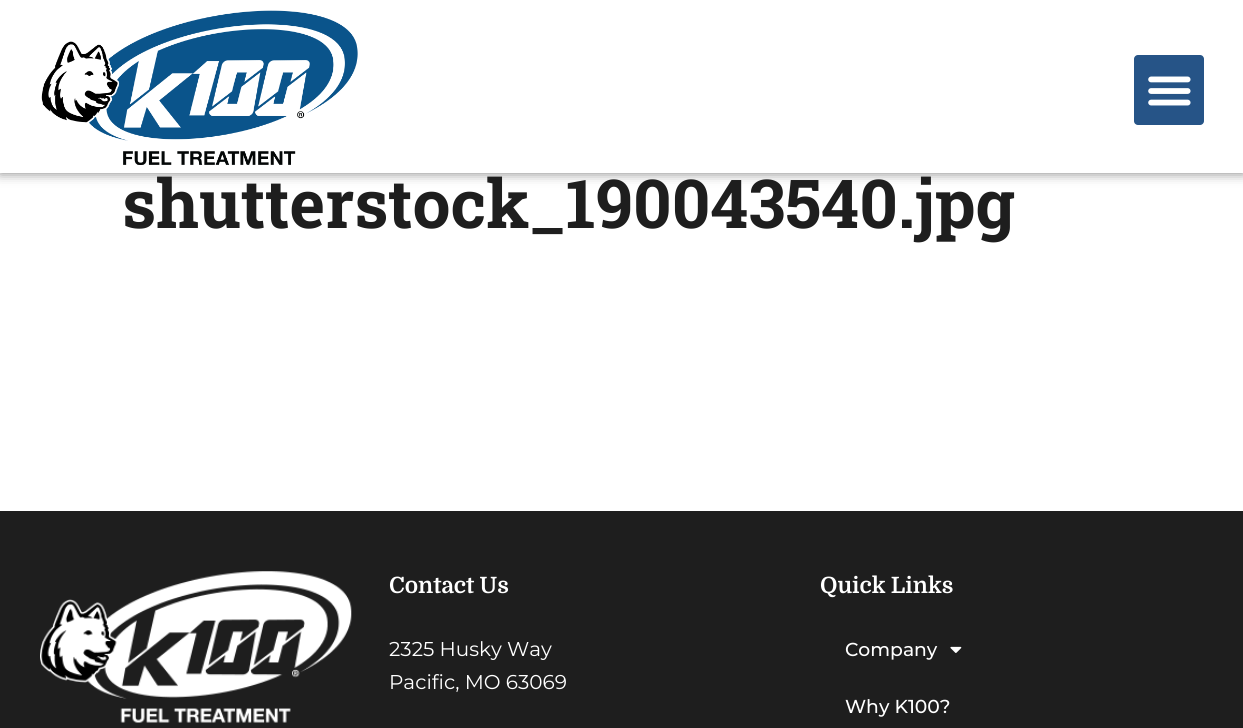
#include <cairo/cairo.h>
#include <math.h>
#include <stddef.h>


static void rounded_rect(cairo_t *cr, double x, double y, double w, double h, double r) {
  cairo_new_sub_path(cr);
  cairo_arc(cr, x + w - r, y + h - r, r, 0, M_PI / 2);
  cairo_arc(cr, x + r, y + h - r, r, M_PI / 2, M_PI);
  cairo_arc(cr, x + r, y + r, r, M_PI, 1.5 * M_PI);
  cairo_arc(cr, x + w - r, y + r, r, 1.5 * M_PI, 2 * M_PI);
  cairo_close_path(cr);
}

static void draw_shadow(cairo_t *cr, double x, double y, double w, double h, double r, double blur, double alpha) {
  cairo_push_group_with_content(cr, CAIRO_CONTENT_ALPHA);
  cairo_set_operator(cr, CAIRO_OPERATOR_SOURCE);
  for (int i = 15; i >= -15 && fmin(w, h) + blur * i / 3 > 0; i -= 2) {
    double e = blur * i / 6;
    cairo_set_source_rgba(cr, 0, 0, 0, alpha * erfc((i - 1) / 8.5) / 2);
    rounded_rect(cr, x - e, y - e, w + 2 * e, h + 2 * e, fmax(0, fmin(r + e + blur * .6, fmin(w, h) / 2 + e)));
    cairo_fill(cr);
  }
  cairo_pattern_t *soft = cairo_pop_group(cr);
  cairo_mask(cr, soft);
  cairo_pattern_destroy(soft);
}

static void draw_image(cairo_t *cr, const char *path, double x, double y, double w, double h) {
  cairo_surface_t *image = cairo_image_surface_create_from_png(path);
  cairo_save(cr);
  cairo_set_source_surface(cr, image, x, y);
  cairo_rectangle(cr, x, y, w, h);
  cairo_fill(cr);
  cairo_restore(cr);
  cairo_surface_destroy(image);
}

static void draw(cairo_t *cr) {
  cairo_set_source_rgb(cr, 1, 1, 1);
  cairo_paint(cr);
  cairo_set_source_rgb(cr, 0, 0, 0);
  draw_shadow(cr, 0, 0, 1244, 173, 0, 6, 0.5);
  cairo_set_source_rgb(cr, 1, 1, 1);
  cairo_rectangle(cr, 0, 0, 1243, 173);
  cairo_fill(cr);
  draw_image(cr, "images/1.png", 41, 10, 317, 155);
  cairo_set_source_rgb(cr, 38 / 255.0, 84 / 255.0, 135 / 255.0);
  rounded_rect(cr, 1134, 55, 70, 70, 4);
  cairo_fill(cr);
  draw_image(cr, "images/2.png", 1148, 76, 43, 30);
  cairo_set_source_rgb(cr, 30 / 255.0, 30 / 255.0, 30 / 255.0);
  cairo_rectangle(cr, 0, 511, 1243, 217);
  cairo_fill(cr);
  draw_image(cr, "images/3.png", 40, 571, 312, 152);
  draw_image(cr, "images/4.png", 950, 646, 12, 7);
  cairo_select_font_face(cr, "Roboto Slab", CAIRO_FONT_SLANT_NORMAL, CAIRO_FONT_WEIGHT_BOLD);
  cairo_set_font_size(cr, 67.5);
  cairo_move_to(cr, 122, 228);
  cairo_show_text(cr, "shutterstock_190043540.jpg");
  cairo_select_font_face(cr, "Domine", CAIRO_FONT_SLANT_NORMAL, CAIRO_FONT_WEIGHT_BOLD);
  cairo_set_font_size(cr, 22.5);
  cairo_set_source_rgb(cr, 1, 1, 1);
  cairo_move_to(cr, 389, 593);
  cairo_show_text(cr, "Contact Us");
  cairo_select_font_face(cr, "Montserrat", CAIRO_FONT_SLANT_NORMAL, CAIRO_FONT_WEIGHT_NORMAL);
  cairo_set_font_size(cr, 20);
  cairo_move_to(cr, 389, 656);
  cairo_show_text(cr, "2325 Husky Way");
  cairo_move_to(cr, 389, 689);
  cairo_show_text(cr, "Pacific, MO 63069");
  cairo_select_font_face(cr, "Domine", CAIRO_FONT_SLANT_NORMAL, CAIRO_FONT_WEIGHT_BOLD);
  cairo_set_font_size(cr, 22.5);
  cairo_move_to(cr, 820, 593);
  cairo_show_text(cr, "Quick Links");
  cairo_select_font_face(cr, "Montserrat Medium", CAIRO_FONT_SLANT_NORMAL, CAIRO_FONT_WEIGHT_NORMAL);
  cairo_set_font_size(cr, 18.75);
  cairo_move_to(cr, 845, 656);
  cairo_show_text(cr, "Company");
  cairo_move_to(cr, 845, 713);
  cairo_show_text(cr, "Why K100?");
}

int main(void) {
  cairo_surface_t *surface = cairo_image_surface_create(CAIRO_FORMAT_RGB24, 1243, 728);
  cairo_t *cr = cairo_create(surface);
  cairo_font_options_t *options = cairo_font_options_create();
  cairo_font_options_set_hint_metrics(options, CAIRO_HINT_METRICS_OFF);
  cairo_font_options_set_hint_style(options, CAIRO_HINT_STYLE_NONE);
  cairo_set_font_options(cr, options);
  cairo_set_miter_limit(cr, 4);
  draw(cr);
  cairo_surface_write_to_png(surface, "out.png");
  cairo_font_options_destroy(options);
  cairo_destroy(cr);
  cairo_surface_destroy(surface);
  return 0;
}
